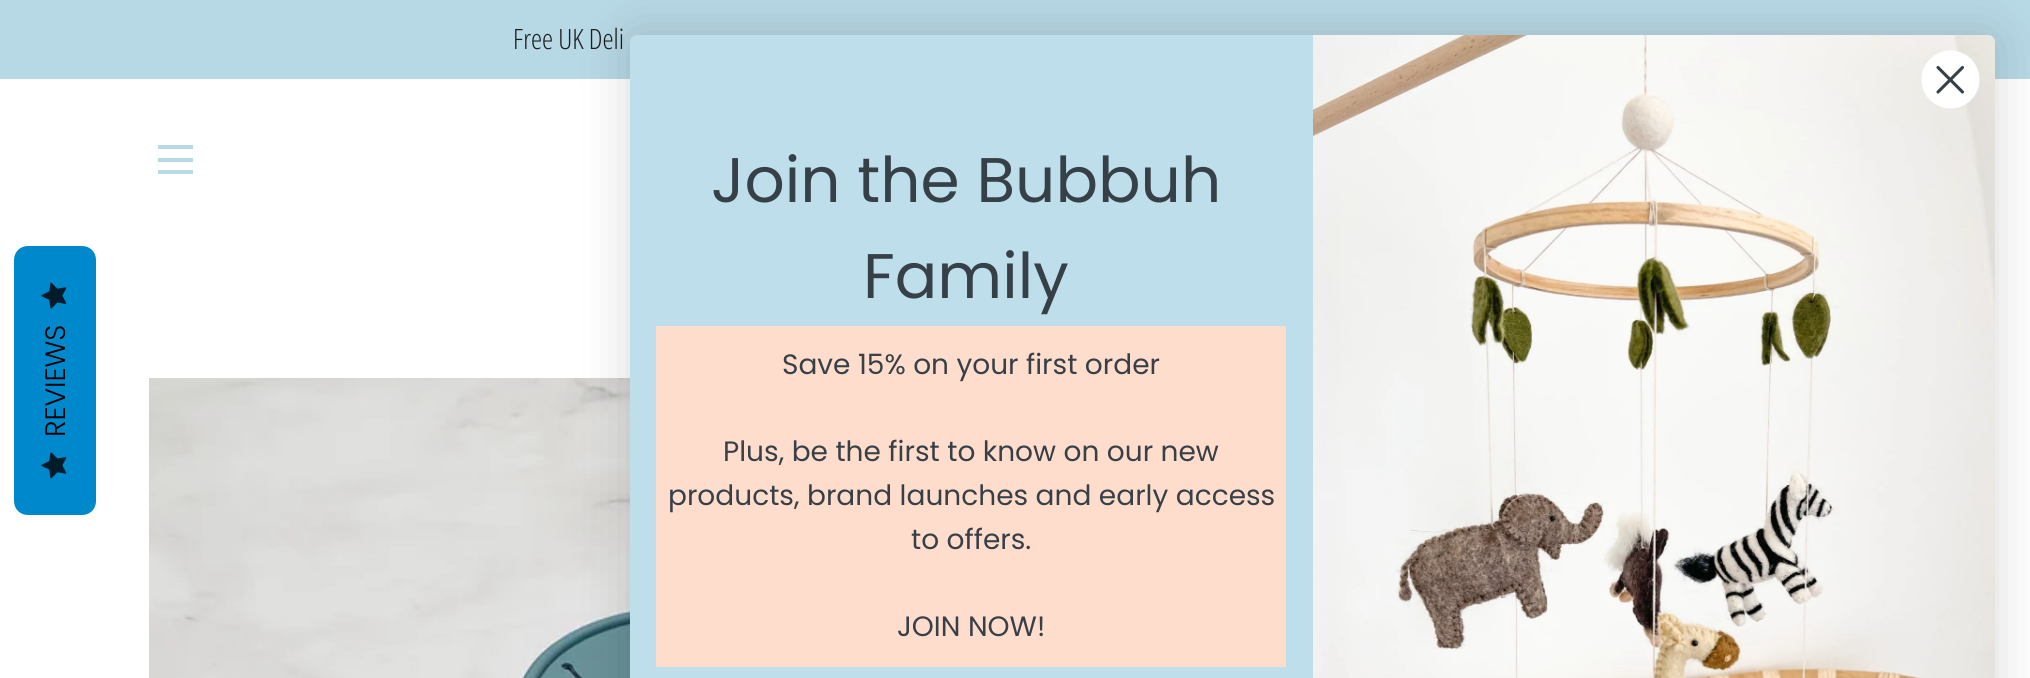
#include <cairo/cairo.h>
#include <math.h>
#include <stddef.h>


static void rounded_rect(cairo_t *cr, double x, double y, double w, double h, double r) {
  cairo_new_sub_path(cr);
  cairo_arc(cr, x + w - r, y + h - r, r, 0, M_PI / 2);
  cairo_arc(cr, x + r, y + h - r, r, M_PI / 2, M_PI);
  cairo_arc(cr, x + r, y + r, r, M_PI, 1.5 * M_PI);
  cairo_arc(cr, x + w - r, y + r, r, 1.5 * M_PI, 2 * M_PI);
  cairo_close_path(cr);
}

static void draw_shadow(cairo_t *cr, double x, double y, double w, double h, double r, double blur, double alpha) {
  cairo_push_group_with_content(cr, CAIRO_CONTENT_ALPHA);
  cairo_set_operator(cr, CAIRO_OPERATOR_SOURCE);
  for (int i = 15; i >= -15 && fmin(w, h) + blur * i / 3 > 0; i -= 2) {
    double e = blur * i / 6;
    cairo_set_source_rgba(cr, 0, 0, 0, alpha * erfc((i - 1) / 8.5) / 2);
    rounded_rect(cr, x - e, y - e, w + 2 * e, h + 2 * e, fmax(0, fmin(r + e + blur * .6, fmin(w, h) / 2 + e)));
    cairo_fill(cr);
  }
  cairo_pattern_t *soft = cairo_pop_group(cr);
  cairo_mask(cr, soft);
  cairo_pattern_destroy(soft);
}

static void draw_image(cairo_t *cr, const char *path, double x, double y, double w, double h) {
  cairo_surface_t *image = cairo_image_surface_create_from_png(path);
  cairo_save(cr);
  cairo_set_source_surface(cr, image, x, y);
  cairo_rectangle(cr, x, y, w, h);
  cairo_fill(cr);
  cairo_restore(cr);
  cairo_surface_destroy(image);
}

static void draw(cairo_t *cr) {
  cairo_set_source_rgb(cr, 1, 1, 1);
  cairo_paint(cr);
  cairo_set_source_rgb(cr, 183 / 255.0, 216 / 255.0, 229 / 255.0);
  cairo_rectangle(cr, 0, 0, 2030, 79);
  cairo_fill(cr);
  cairo_set_source_rgb(cr, 183 / 255.0, 218 / 255.0, 229 / 255.0);
  cairo_rectangle(cr, 158, 145, 35, 4);
  cairo_fill(cr);
  cairo_rectangle(cr, 158, 158, 35, 4);
  cairo_fill(cr);
  cairo_rectangle(cr, 158, 170, 35, 4);
  cairo_fill(cr);
  cairo_set_source_rgb(cr, 0, 136 / 255.0, 204 / 255.0);
  cairo_new_path(cr);
  cairo_move_to(cr, 14, 501);
  cairo_line_to(cr, 14, 260);
  cairo_curve_to(cr, 14, 252, 20, 246, 28, 246);
  cairo_line_to(cr, 82, 246);
  cairo_curve_to(cr, 90, 246, 96, 252, 96, 260);
  cairo_line_to(cr, 96, 501);
  cairo_curve_to(cr, 96, 509, 90, 515, 82, 515);
  cairo_line_to(cr, 28, 515);
  cairo_curve_to(cr, 20, 515, 14, 509, 14, 501);
  cairo_close_path(cr);
  cairo_fill(cr);
  draw_image(cr, "images/1.png", 41, 282, 26, 27);
  draw_image(cr, "images/2.png", 41, 452, 26, 27);
  draw_image(cr, "images/3.png", 149, 378, 481, 300);
  cairo_set_source_rgb(cr, 0, 0, 0);
  draw_shadow(cr, 630, 35, 1365, 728, 7, 26, 0.15);
  cairo_set_source_rgb(cr, 190 / 255.0, 222 / 255.0, 235 / 255.0);
  rounded_rect(cr, 630, 35, 1365, 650, 7);
  cairo_fill(cr);
  draw_image(cr, "images/4.png", 1313, 35, 682, 643);
  cairo_set_source_rgb(cr, 1, 1, 1);
  cairo_arc(cr, 1950.5, 79.5, 29, 0, 2 * M_PI);
  cairo_fill(cr);
  cairo_new_path(cr);
  cairo_move_to(cr, 1938, 67.5);
  cairo_line_to(cr, 1962.5, 92);
  cairo_move_to(cr, 1938, 92);
  cairo_line_to(cr, 1962.5, 67.5);
  cairo_close_path(cr);
  cairo_set_source_rgb(cr, 55 / 255.0, 63 / 255.0, 71 / 255.0);
  cairo_set_line_width(cr, 3.1);
  cairo_set_line_cap(cr, CAIRO_LINE_CAP_ROUND);
  cairo_set_line_join(cr, CAIRO_LINE_JOIN_ROUND);
  cairo_stroke(cr);
  cairo_set_source_rgb(cr, 1, 221 / 255.0, 204 / 255.0);
  cairo_rectangle(cr, 656, 326, 630, 341);
  cairo_fill(cr);
  cairo_select_font_face(cr, "Open Sans Condensed Light", CAIRO_FONT_SLANT_NORMAL, CAIRO_FONT_WEIGHT_NORMAL);
  cairo_set_font_size(cr, 28);
  cairo_set_source_rgb(cr, 28 / 255.0, 28 / 255.0, 29 / 255.0);
  cairo_move_to(cr, 513, 49);
  cairo_show_text(cr, "Free UK Deli");
  cairo_select_font_face(cr, "Poppins Light", CAIRO_FONT_SLANT_NORMAL, CAIRO_FONT_WEIGHT_NORMAL);
  cairo_set_source_rgb(cr, 0, 0, 0);
  cairo_save(cr);
  cairo_translate(cr, 65, 437);
  cairo_rotate(cr, -90 * M_PI / 180);
  cairo_move_to(cr, 0, 0);
  cairo_show_text(cr, "REVIEWS");
  cairo_restore(cr);
  cairo_select_font_face(cr, "Poppins", CAIRO_FONT_SLANT_NORMAL, CAIRO_FONT_WEIGHT_NORMAL);
  cairo_set_font_size(cr, 63);
  cairo_set_source_rgb(cr, 55 / 255.0, 63 / 255.0, 71 / 255.0);
  cairo_move_to(cr, 711, 202);
  cairo_show_text(cr, "Join the Bubbuh");
  cairo_move_to(cr, 863, 298);
  cairo_show_text(cr, "Family");
  cairo_set_font_size(cr, 28);
  cairo_move_to(cr, 782, 374);
  cairo_show_text(cr, "Save 15% on your first order");
  cairo_move_to(cr, 723, 461);
  cairo_show_text(cr, "Plus, be the first to know on our new");
  cairo_move_to(cr, 668, 505);
  cairo_show_text(cr, "products, brand launches and early access");
  cairo_move_to(cr, 911, 549);
  cairo_show_text(cr, "to offers.");
  cairo_move_to(cr, 897, 636);
  cairo_show_text(cr, "JOIN NOW!");
}

int main(void) {
  cairo_surface_t *surface = cairo_image_surface_create(CAIRO_FORMAT_RGB24, 2030, 678);
  cairo_t *cr = cairo_create(surface);
  cairo_font_options_t *options = cairo_font_options_create();
  cairo_font_options_set_hint_metrics(options, CAIRO_HINT_METRICS_OFF);
  cairo_font_options_set_hint_style(options, CAIRO_HINT_STYLE_NONE);
  cairo_set_font_options(cr, options);
  cairo_set_miter_limit(cr, 4);
  draw(cr);
  cairo_surface_write_to_png(surface, "out.png");
  cairo_font_options_destroy(options);
  cairo_destroy(cr);
  cairo_surface_destroy(surface);
  return 0;
}
